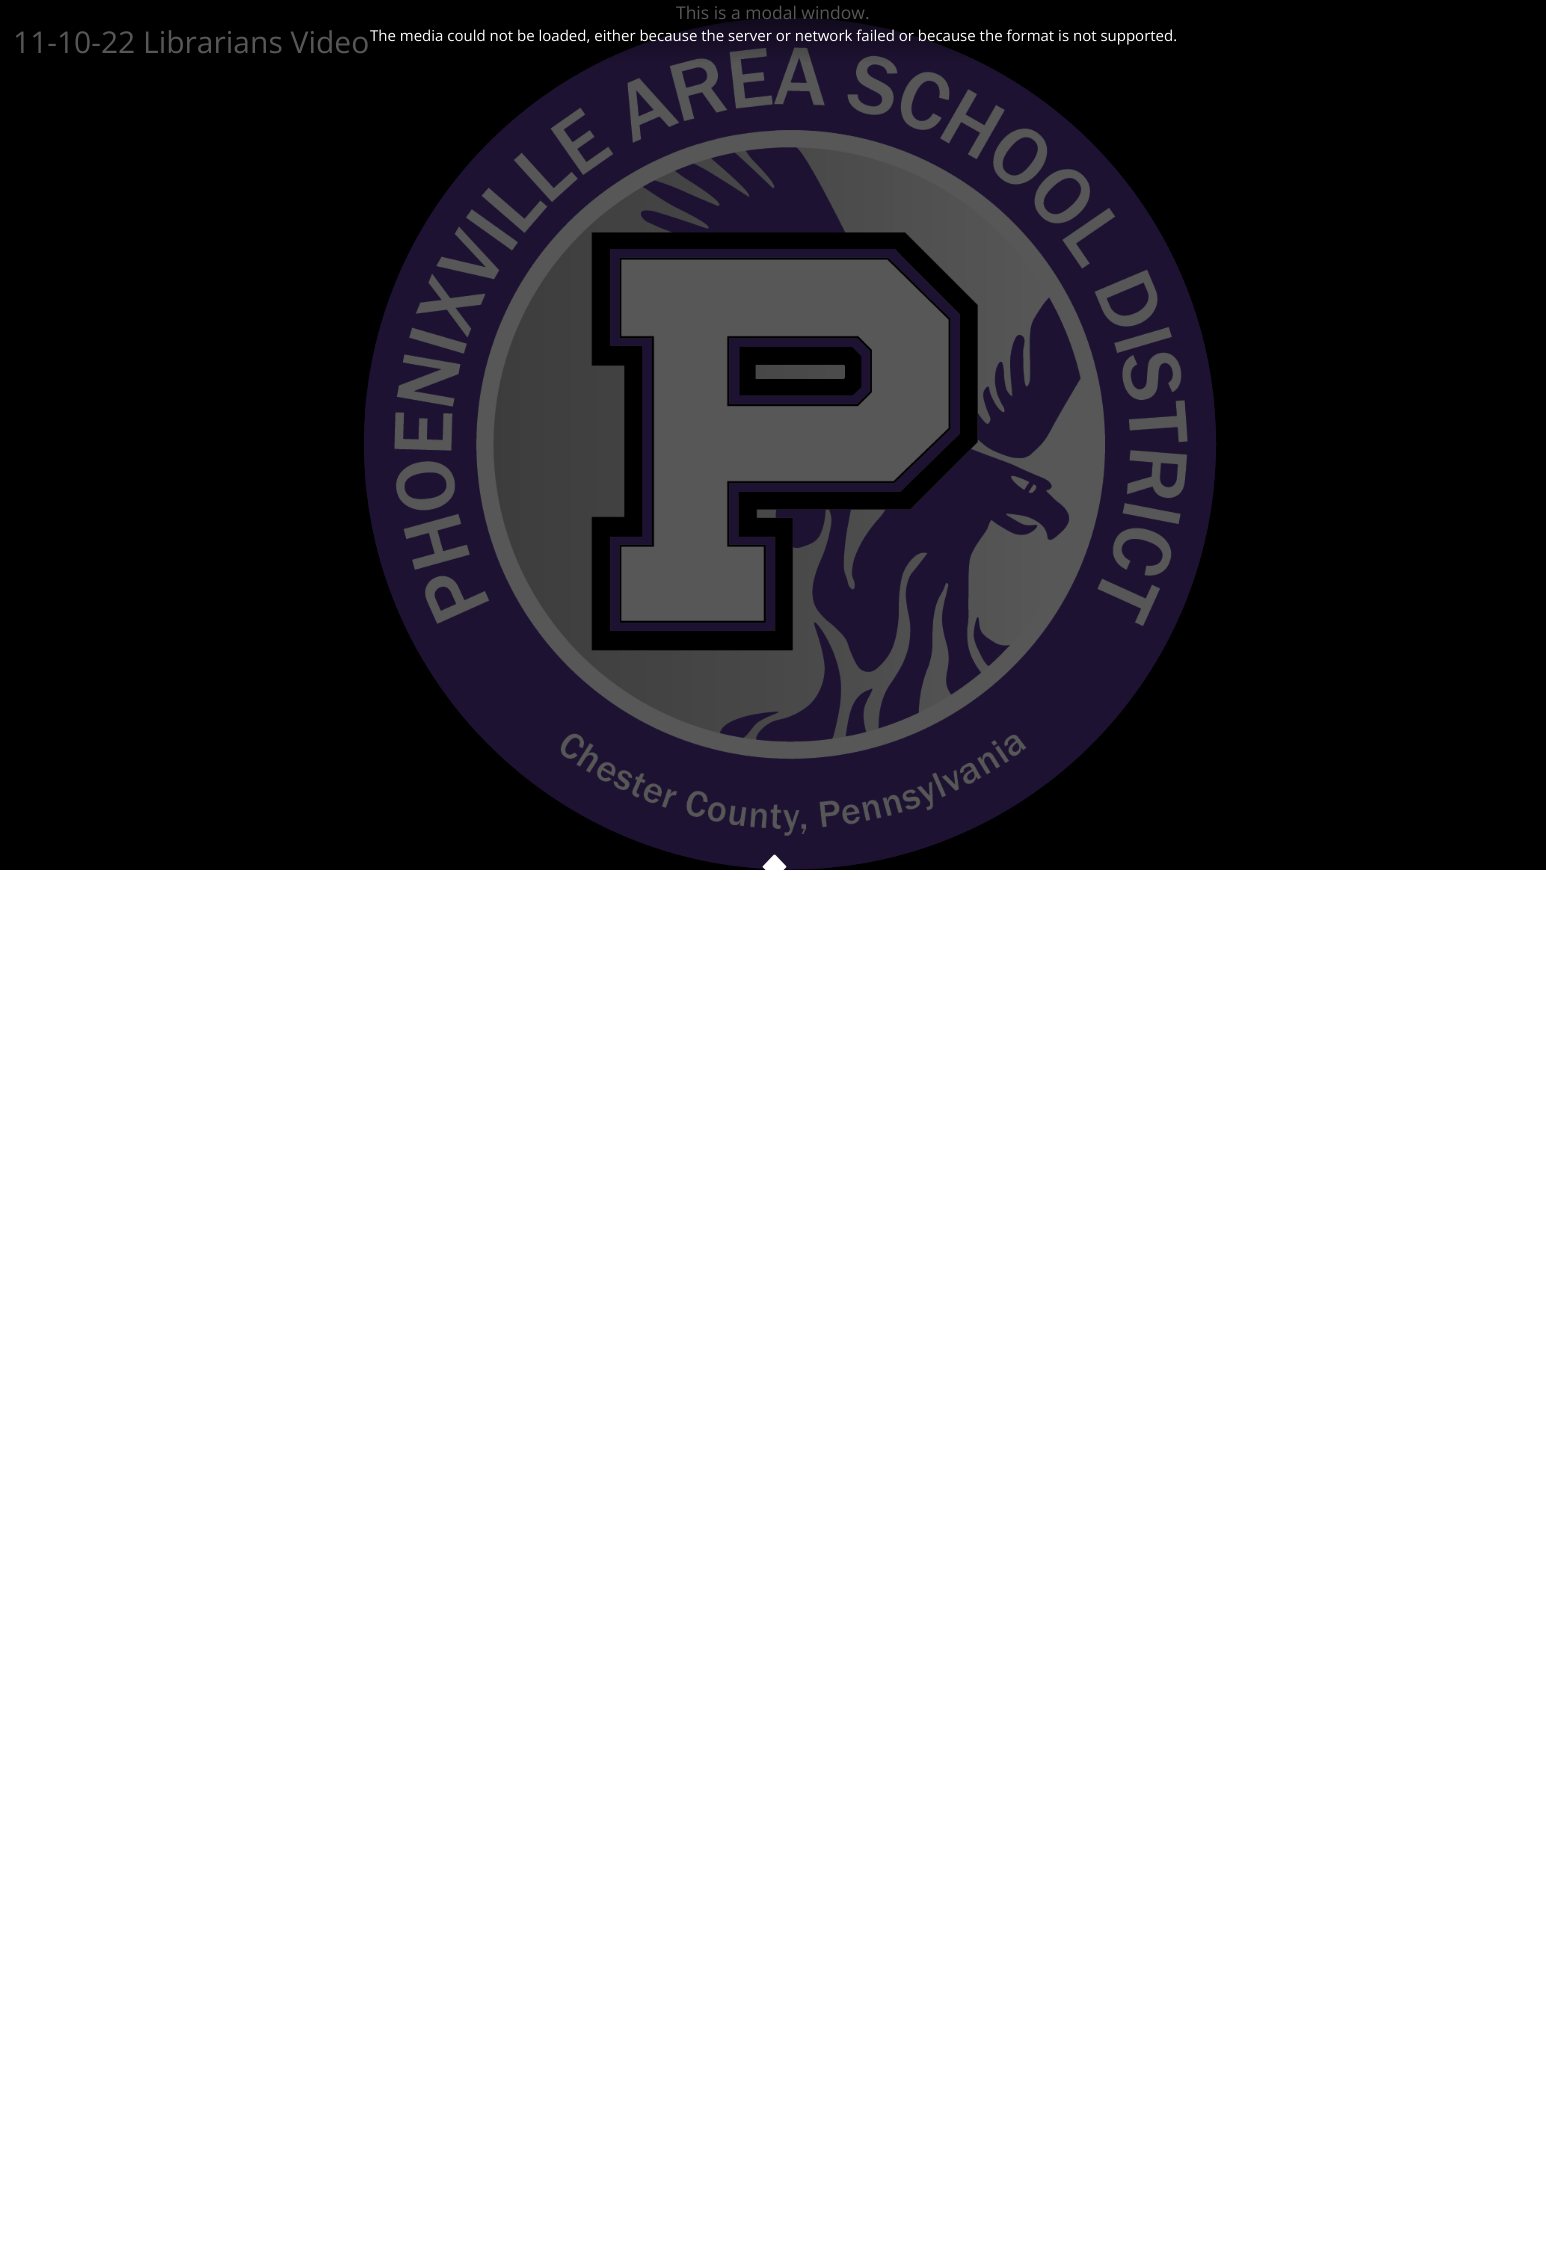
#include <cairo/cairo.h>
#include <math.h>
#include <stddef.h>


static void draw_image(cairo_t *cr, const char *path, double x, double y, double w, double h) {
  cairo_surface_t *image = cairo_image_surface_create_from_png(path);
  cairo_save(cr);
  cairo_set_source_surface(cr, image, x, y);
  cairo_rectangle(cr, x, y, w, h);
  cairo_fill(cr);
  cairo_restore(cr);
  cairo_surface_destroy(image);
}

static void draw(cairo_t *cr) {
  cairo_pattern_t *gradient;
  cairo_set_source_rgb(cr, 1, 1, 1);
  cairo_paint(cr);
  cairo_set_source_rgb(cr, 0, 0, 0);
  cairo_rectangle(cr, 0, 0, 1546, 870);
  cairo_fill(cr);
  draw_image(cr, "images/1.png", 364, 18, 853, 852);
  draw_image(cr, "images/2.png", 364, 18, 853, 852);
  cairo_save(cr);
  cairo_rectangle(cr, 0, 0, 1546, 870);
  cairo_clip(cr);
  cairo_set_source_rgb(cr, 1, 1, 1);
  cairo_new_path(cr);
  cairo_move_to(cr, 775.5, 855);
  cairo_line_to(cr, 786, 866);
  cairo_curve_to(cr, 786.5, 866.5, 786.5, 867, 786, 867.5);
  cairo_line_to(cr, 775.5, 878);
  cairo_curve_to(cr, 775, 878.5, 774, 878.5, 773.5, 878);
  cairo_line_to(cr, 763, 867.5);
  cairo_curve_to(cr, 762.5, 867, 762.5, 866.5, 763, 866);
  cairo_line_to(cr, 773.5, 855);
  cairo_curve_to(cr, 774, 854.5, 775, 854.5, 775.5, 855);
  cairo_close_path(cr);
  cairo_fill(cr);
  cairo_restore(cr);
  gradient = cairo_pattern_create_linear(773, 65, 773, 0);
  cairo_pattern_add_color_stop_rgba(gradient, 0, 0, 0, 0, 0);
  cairo_pattern_add_color_stop_rgba(gradient, 1, 0, 0, 0, 0.6);
  cairo_set_source(cr, gradient);
  cairo_pattern_destroy(gradient);
  cairo_rectangle(cr, 608, 18, 364, 44);
  cairo_fill(cr);
  cairo_select_font_face(cr, "Open Sans", CAIRO_FONT_SLANT_NORMAL, CAIRO_FONT_WEIGHT_NORMAL);
  cairo_set_font_size(cr, 17.5);
  cairo_set_source_rgb(cr, 87 / 255.0, 87 / 255.0, 87 / 255.0);
  cairo_move_to(cr, 676, 19);
  cairo_show_text(cr, "This is a modal window.");
  cairo_set_font_size(cr, 15);
  cairo_set_source_rgb(cr, 1, 1, 1);
  cairo_move_to(cr, 370, 41);
  cairo_show_text(cr, "The media could not be loaded, either because the server or network failed or because the format is not supported.");
  cairo_set_font_size(cr, 30);
  cairo_set_source_rgb(cr, 87 / 255.0, 87 / 255.0, 87 / 255.0);
  cairo_move_to(cr, 13, 53);
  cairo_show_text(cr, "11-10-22 Librarians Video");
}

int main(void) {
  cairo_surface_t *surface = cairo_image_surface_create(CAIRO_FORMAT_RGB24, 1546, 2265);
  cairo_t *cr = cairo_create(surface);
  cairo_font_options_t *options = cairo_font_options_create();
  cairo_font_options_set_hint_metrics(options, CAIRO_HINT_METRICS_OFF);
  cairo_font_options_set_hint_style(options, CAIRO_HINT_STYLE_NONE);
  cairo_set_font_options(cr, options);
  cairo_set_miter_limit(cr, 4);
  draw(cr);
  cairo_surface_write_to_png(surface, "out.png");
  cairo_font_options_destroy(options);
  cairo_destroy(cr);
  cairo_surface_destroy(surface);
  return 0;
}
